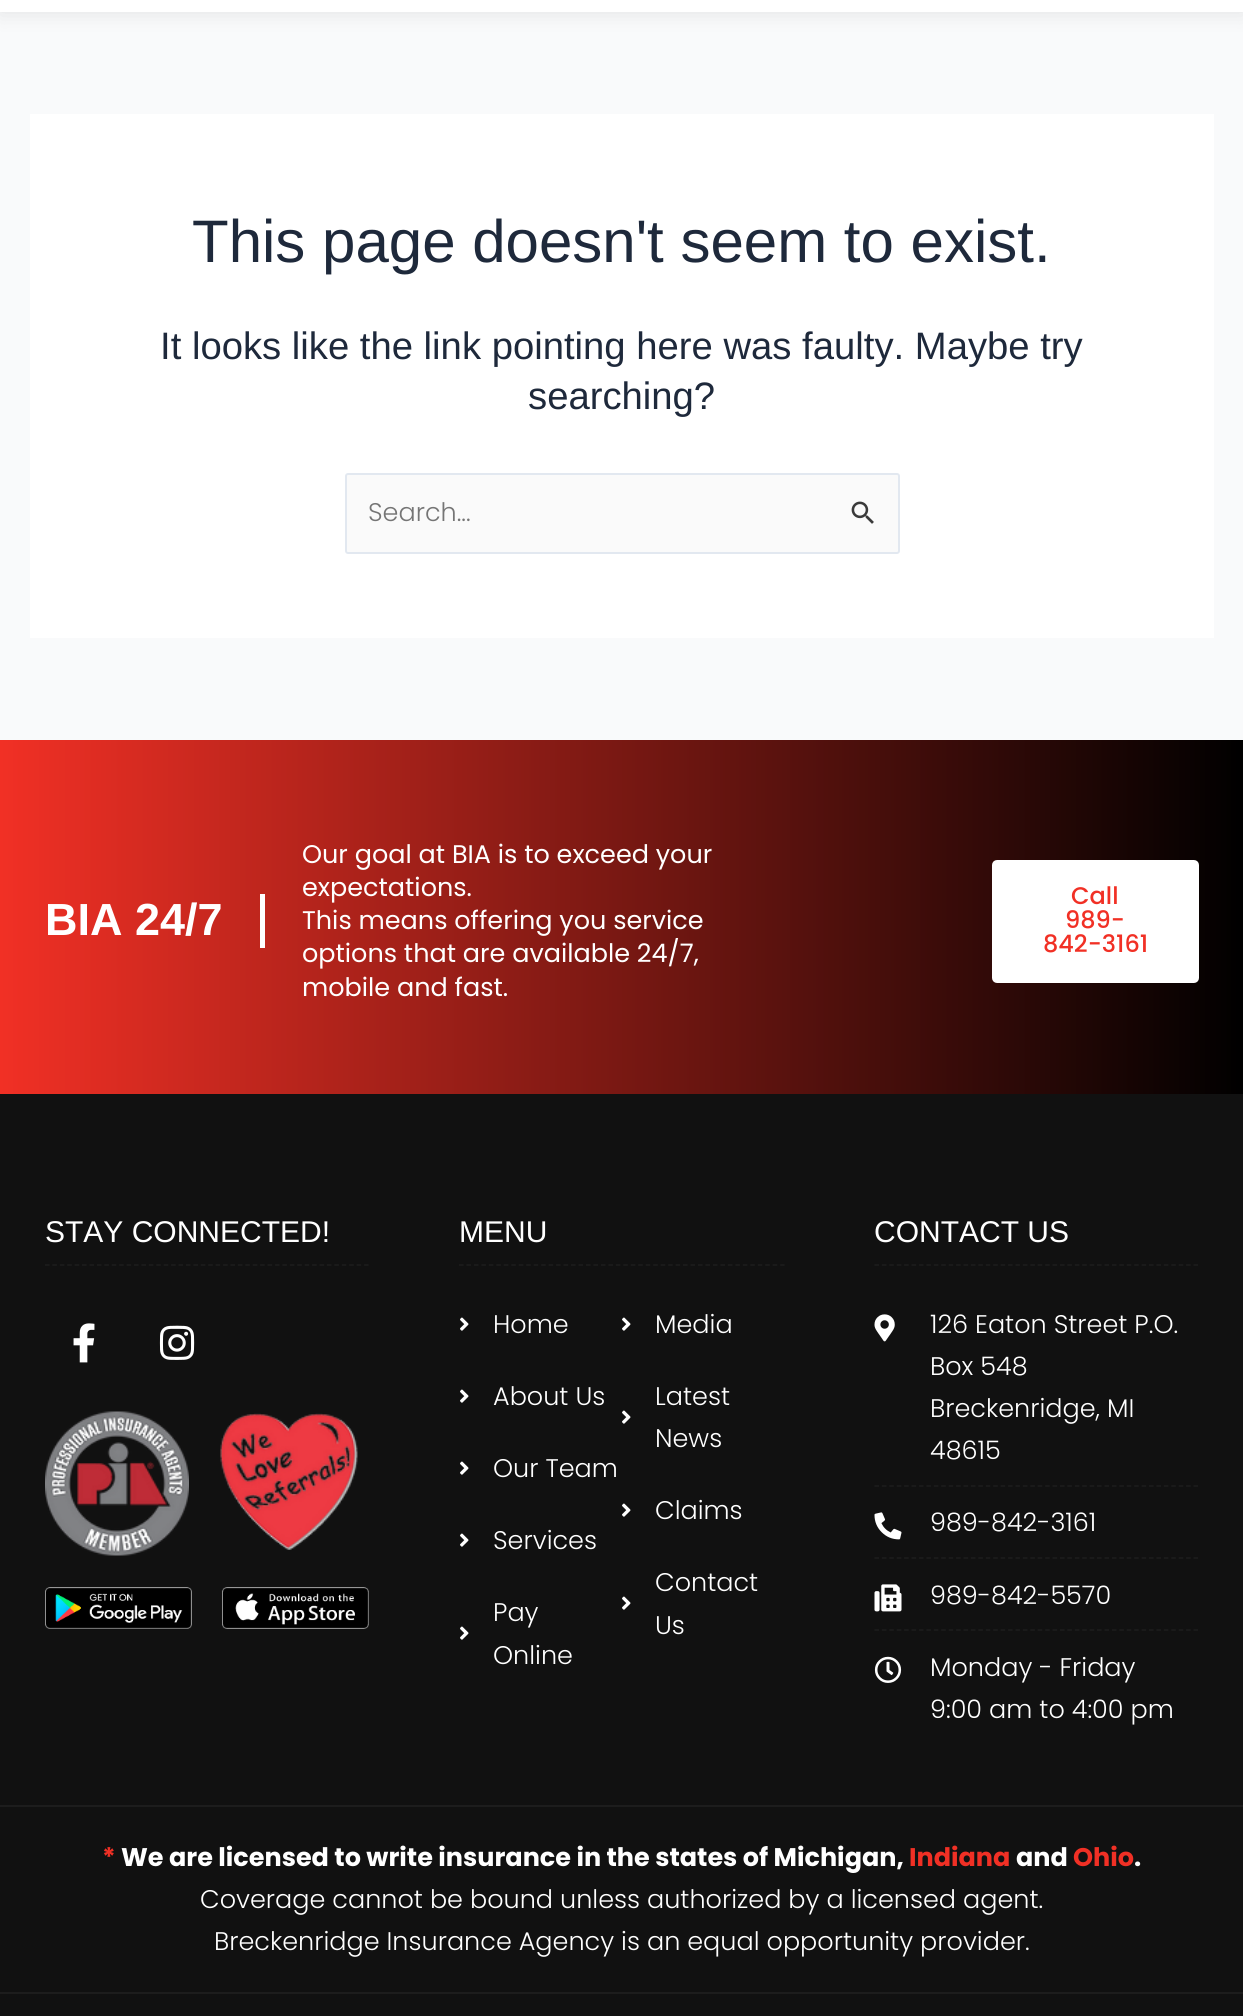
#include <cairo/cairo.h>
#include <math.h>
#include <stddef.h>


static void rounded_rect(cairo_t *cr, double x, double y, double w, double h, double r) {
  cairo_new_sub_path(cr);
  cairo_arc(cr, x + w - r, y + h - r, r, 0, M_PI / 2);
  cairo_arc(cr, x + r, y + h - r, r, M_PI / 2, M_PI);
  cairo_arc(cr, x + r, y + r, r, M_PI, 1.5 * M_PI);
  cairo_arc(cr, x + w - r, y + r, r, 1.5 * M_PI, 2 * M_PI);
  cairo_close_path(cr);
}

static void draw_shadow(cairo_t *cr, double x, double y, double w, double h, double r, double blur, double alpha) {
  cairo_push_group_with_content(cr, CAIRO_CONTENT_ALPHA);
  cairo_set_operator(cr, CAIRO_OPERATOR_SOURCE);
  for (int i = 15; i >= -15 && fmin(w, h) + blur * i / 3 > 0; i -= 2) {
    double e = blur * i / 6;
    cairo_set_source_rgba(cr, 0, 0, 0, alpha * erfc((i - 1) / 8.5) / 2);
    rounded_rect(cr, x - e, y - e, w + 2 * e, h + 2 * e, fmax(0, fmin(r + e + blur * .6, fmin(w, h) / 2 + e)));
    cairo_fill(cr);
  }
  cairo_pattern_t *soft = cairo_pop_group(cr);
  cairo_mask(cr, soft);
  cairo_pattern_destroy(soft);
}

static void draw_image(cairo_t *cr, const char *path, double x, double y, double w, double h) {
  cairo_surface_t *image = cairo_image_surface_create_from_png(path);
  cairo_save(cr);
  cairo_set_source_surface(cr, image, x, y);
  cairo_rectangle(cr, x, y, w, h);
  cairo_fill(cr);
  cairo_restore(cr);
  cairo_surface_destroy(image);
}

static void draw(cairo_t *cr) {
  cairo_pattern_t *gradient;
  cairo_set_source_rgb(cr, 249 / 255.0, 250 / 255.0, 251 / 255.0);
  cairo_paint(cr);
  cairo_set_source_rgb(cr, 0, 0, 0);
  draw_shadow(cr, 0, -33, 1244, 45, 0, 11, 0.1);
  cairo_set_source_rgb(cr, 1, 1, 1);
  cairo_rectangle(cr, 0, 0, 1243, 12);
  cairo_fill(cr);
  cairo_rectangle(cr, 30, 114, 1184, 524);
  cairo_fill(cr);
  cairo_set_source_rgb(cr, 250 / 255.0, 250 / 255.0, 250 / 255.0);
  rounded_rect(cr, 346, 474, 553, 79, 2);
  cairo_fill_preserve(cr);
  cairo_set_source_rgb(cr, 226 / 255.0, 232 / 255.0, 240 / 255.0);
  cairo_stroke(cr);
  draw_image(cr, "images/1.png", 851, 501, 23, 23);
  gradient = cairo_pattern_create_linear(0, 917, 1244, 917);
  cairo_pattern_add_color_stop_rgba(gradient, 0, 241 / 255.0, 48 / 255.0, 37 / 255.0, 1);
  cairo_pattern_add_color_stop_rgba(gradient, 1, 0, 0, 0, 1);
  cairo_set_source(cr, gradient);
  cairo_pattern_destroy(gradient);
  cairo_rectangle(cr, 0, 740, 1243, 354);
  cairo_fill(cr);
  cairo_set_source_rgb(cr, 1, 1, 1);
  cairo_rectangle(cr, 260, 894, 5, 54);
  cairo_fill(cr);
  rounded_rect(cr, 993.5, 861.5, 204, 120, 3.5);
  cairo_fill_preserve(cr);
  cairo_set_line_width(cr, 3);
  cairo_stroke(cr);
  cairo_set_source_rgb(cr, 17 / 255.0, 17 / 255.0, 17 / 255.0);
  cairo_rectangle(cr, 0, 1094, 1243, 922);
  cairo_fill(cr);
  cairo_new_path(cr);
  cairo_move_to(cr, 45, 1265);
  cairo_line_to(cr, 369, 1265);
  cairo_set_source_rgb(cr, 29 / 255.0, 29 / 255.0, 29 / 255.0);
  cairo_set_line_width(cr, 1.5);
  cairo_set_dash(cr, (double[]){4.5, 2.92}, 2, 0);
  cairo_stroke(cr);
  draw_image(cr, "images/2.png", 73, 1323, 22, 40);
  draw_image(cr, "images/3.png", 159, 1325, 36, 35);
  draw_image(cr, "images/4.png", 45, 1411, 144, 145);
  draw_image(cr, "images/5.png", 220, 1413, 138, 137);
  draw_image(cr, "images/6.png", 45, 1587, 147, 42);
  draw_image(cr, "images/7.png", 222, 1587, 147, 42);
  cairo_new_path(cr);
  cairo_move_to(cr, 459, 1265);
  cairo_line_to(cr, 784.5, 1265);
  cairo_set_dash(cr, (double[]){4.5, 2.97}, 2, 0);
  cairo_stroke(cr);
  draw_image(cr, "images/8.png", 460, 1317, 9, 14);
  draw_image(cr, "images/8.png", 460, 1389, 9, 14);
  draw_image(cr, "images/8.png", 460, 1461, 9, 14);
  draw_image(cr, "images/8.png", 460, 1533, 9, 14);
  draw_image(cr, "images/8.png", 460, 1626, 9, 14);
  draw_image(cr, "images/8.png", 622, 1317, 9, 14);
  draw_image(cr, "images/8.png", 622, 1410, 9, 14);
  draw_image(cr, "images/8.png", 622, 1503, 9, 14);
  draw_image(cr, "images/8.png", 622, 1596, 9, 14);
  cairo_new_path(cr);
  cairo_move_to(cr, 874.5, 1265);
  cairo_line_to(cr, 1198.5, 1265);
  cairo_set_dash(cr, (double[]){4.5, 2.92}, 2, 0);
  cairo_stroke(cr);
  draw_image(cr, "images/9.png", 874, 1314, 21, 28);
  cairo_new_path(cr);
  cairo_move_to(cr, 874.5, 1486);
  cairo_line_to(cr, 1198.5, 1486);
  cairo_stroke(cr);
  draw_image(cr, "images/10.png", 874, 1512, 28, 28);
  cairo_new_path(cr);
  cairo_move_to(cr, 874.5, 1558);
  cairo_line_to(cr, 1198.5, 1558);
  cairo_stroke(cr);
  draw_image(cr, "images/11.png", 874, 1584, 28, 28);
  cairo_new_path(cr);
  cairo_move_to(cr, 874.5, 1630);
  cairo_line_to(cr, 1198.5, 1630);
  cairo_stroke(cr);
  draw_image(cr, "images/12.png", 874, 1656, 28, 27);
  cairo_rectangle(cr, 0, 1805, 1243, 2);
  cairo_fill(cr);
  cairo_rectangle(cr, 0, 1992, 1243, 2);
  cairo_fill(cr);
  cairo_select_font_face(cr, "Liberation Sans", CAIRO_FONT_SLANT_NORMAL, CAIRO_FONT_WEIGHT_NORMAL);
  cairo_set_font_size(cr, 60);
  cairo_set_source_rgb(cr, 30 / 255.0, 41 / 255.0, 59 / 255.0);
  cairo_move_to(cr, 192, 262);
  cairo_show_text(cr, "This page doesn't seem to exist.");
  cairo_set_font_size(cr, 38.25);
  cairo_move_to(cr, 160, 359);
  cairo_show_text(cr, "It looks like the link pointing here was faulty. Maybe try");
  cairo_move_to(cr, 528, 409);
  cairo_show_text(cr, "searching?");
  cairo_select_font_face(cr, "Poppins Light", CAIRO_FONT_SLANT_NORMAL, CAIRO_FONT_WEIGHT_NORMAL);
  cairo_set_font_size(cr, 25.5);
  cairo_set_source_rgb(cr, 117 / 255.0, 117 / 255.0, 117 / 255.0);
  cairo_move_to(cr, 368, 521);
  cairo_show_text(cr, "Search...");
  cairo_select_font_face(cr, "Liberation Sans", CAIRO_FONT_SLANT_NORMAL, CAIRO_FONT_WEIGHT_BOLD);
  cairo_set_font_size(cr, 45);
  cairo_set_source_rgb(cr, 1, 1, 1);
  cairo_move_to(cr, 45, 935);
  cairo_show_text(cr, "BIA 24/7");
  cairo_select_font_face(cr, "Poppins", CAIRO_FONT_SLANT_NORMAL, CAIRO_FONT_WEIGHT_NORMAL);
  cairo_set_font_size(cr, 25.5);
  cairo_move_to(cr, 302, 863);
  cairo_show_text(cr, "Our goal at BIA is to exceed your");
  cairo_move_to(cr, 302, 896);
  cairo_show_text(cr, "expectations.");
  cairo_move_to(cr, 302, 929);
  cairo_show_text(cr, "This means offering you service");
  cairo_move_to(cr, 302, 962);
  cairo_show_text(cr, "options that are available 24/7,");
  cairo_move_to(cr, 302, 996);
  cairo_show_text(cr, "mobile and fast.");
  cairo_select_font_face(cr, "Poppins Medium", CAIRO_FONT_SLANT_NORMAL, CAIRO_FONT_WEIGHT_NORMAL);
  cairo_set_font_size(cr, 24);
  cairo_set_source_rgb(cr, 241 / 255.0, 48 / 255.0, 37 / 255.0);
  cairo_move_to(cr, 1071, 904);
  cairo_show_text(cr, "Call");
  cairo_move_to(cr, 1065, 928);
  cairo_show_text(cr, "989-");
  cairo_move_to(cr, 1043, 952);
  cairo_show_text(cr, "842-3161");
  cairo_select_font_face(cr, "Liberation Sans", CAIRO_FONT_SLANT_NORMAL, CAIRO_FONT_WEIGHT_NORMAL);
  cairo_set_font_size(cr, 30);
  cairo_set_source_rgb(cr, 1, 1, 1);
  cairo_move_to(cr, 45, 1242);
  cairo_show_text(cr, "STAY CONNECTED!");
  cairo_move_to(cr, 459, 1242);
  cairo_show_text(cr, "MENU");
  cairo_select_font_face(cr, "Poppins Light", CAIRO_FONT_SLANT_NORMAL, CAIRO_FONT_WEIGHT_NORMAL);
  cairo_set_font_size(cr, 25.5);
  cairo_move_to(cr, 493, 1333);
  cairo_show_text(cr, "Home");
  cairo_move_to(cr, 493, 1405);
  cairo_show_text(cr, "About Us");
  cairo_move_to(cr, 493, 1477);
  cairo_show_text(cr, "Our Team");
  cairo_move_to(cr, 493, 1549);
  cairo_show_text(cr, "Services");
  cairo_move_to(cr, 493, 1621);
  cairo_show_text(cr, "Pay");
  cairo_move_to(cr, 493, 1664);
  cairo_show_text(cr, "Online");
  cairo_move_to(cr, 655, 1333);
  cairo_show_text(cr, "Media");
  cairo_move_to(cr, 655, 1405);
  cairo_show_text(cr, "Latest");
  cairo_move_to(cr, 655, 1447);
  cairo_show_text(cr, "News");
  cairo_move_to(cr, 655, 1519);
  cairo_show_text(cr, "Claims");
  cairo_move_to(cr, 655, 1591);
  cairo_show_text(cr, "Contact");
  cairo_move_to(cr, 655, 1634);
  cairo_show_text(cr, "Us");
  cairo_select_font_face(cr, "Liberation Sans", CAIRO_FONT_SLANT_NORMAL, CAIRO_FONT_WEIGHT_NORMAL);
  cairo_set_font_size(cr, 30);
  cairo_move_to(cr, 874, 1242);
  cairo_show_text(cr, "CONTACT US");
  cairo_select_font_face(cr, "Poppins Light", CAIRO_FONT_SLANT_NORMAL, CAIRO_FONT_WEIGHT_NORMAL);
  cairo_set_font_size(cr, 25.5);
  cairo_move_to(cr, 930, 1333);
  cairo_show_text(cr, "126 Eaton Street P.O.");
  cairo_move_to(cr, 930, 1375);
  cairo_show_text(cr, "Box 548");
  cairo_move_to(cr, 930, 1417);
  cairo_show_text(cr, "Breckenridge, MI");
  cairo_move_to(cr, 930, 1459);
  cairo_show_text(cr, "48615");
  cairo_move_to(cr, 930, 1531);
  cairo_show_text(cr, "989-842-3161");
  cairo_move_to(cr, 930, 1604);
  cairo_show_text(cr, "989-842-5570");
  cairo_move_to(cr, 930, 1676);
  cairo_show_text(cr, "Monday - Friday");
  cairo_move_to(cr, 930, 1718);
  cairo_show_text(cr, "9:00 am to 4:00 pm");
  cairo_select_font_face(cr, "Poppins", CAIRO_FONT_SLANT_NORMAL, CAIRO_FONT_WEIGHT_BOLD);
  cairo_set_source_rgb(cr, 241 / 255.0, 48 / 255.0, 37 / 255.0);
  cairo_move_to(cr, 102, 1866);
  cairo_show_text(cr, "*");
  cairo_set_source_rgb(cr, 1, 1, 1);
  cairo_move_to(cr, 121, 1866);
  cairo_show_text(cr, "We are licensed to write insurance in the states of Michigan,");
  cairo_set_source_rgb(cr, 241 / 255.0, 48 / 255.0, 37 / 255.0);
  cairo_move_to(cr, 909, 1866);
  cairo_show_text(cr, "Indiana");
  cairo_set_source_rgb(cr, 1, 1, 1);
  cairo_move_to(cr, 1016, 1866);
  cairo_show_text(cr, "and");
  cairo_set_source_rgb(cr, 241 / 255.0, 48 / 255.0, 37 / 255.0);
  cairo_move_to(cr, 1073, 1866);
  cairo_show_text(cr, "Ohio");
  cairo_set_source_rgb(cr, 1, 1, 1);
  cairo_move_to(cr, 1134, 1866);
  cairo_show_text(cr, ".");
  cairo_select_font_face(cr, "Poppins Light", CAIRO_FONT_SLANT_NORMAL, CAIRO_FONT_WEIGHT_NORMAL);
  cairo_move_to(cr, 200, 1908);
  cairo_show_text(cr, "Coverage cannot be bound unless authorized by a licensed agent.");
  cairo_move_to(cr, 214, 1950);
  cairo_show_text(cr, "Breckenridge Insurance Agency is an equal opportunity provider.");
}

int main(void) {
  cairo_surface_t *surface = cairo_image_surface_create(CAIRO_FORMAT_RGB24, 1243, 2016);
  cairo_t *cr = cairo_create(surface);
  cairo_font_options_t *options = cairo_font_options_create();
  cairo_font_options_set_hint_metrics(options, CAIRO_HINT_METRICS_OFF);
  cairo_font_options_set_hint_style(options, CAIRO_HINT_STYLE_NONE);
  cairo_set_font_options(cr, options);
  cairo_set_miter_limit(cr, 4);
  draw(cr);
  cairo_surface_write_to_png(surface, "out.png");
  cairo_font_options_destroy(options);
  cairo_destroy(cr);
  cairo_surface_destroy(surface);
  return 0;
}
